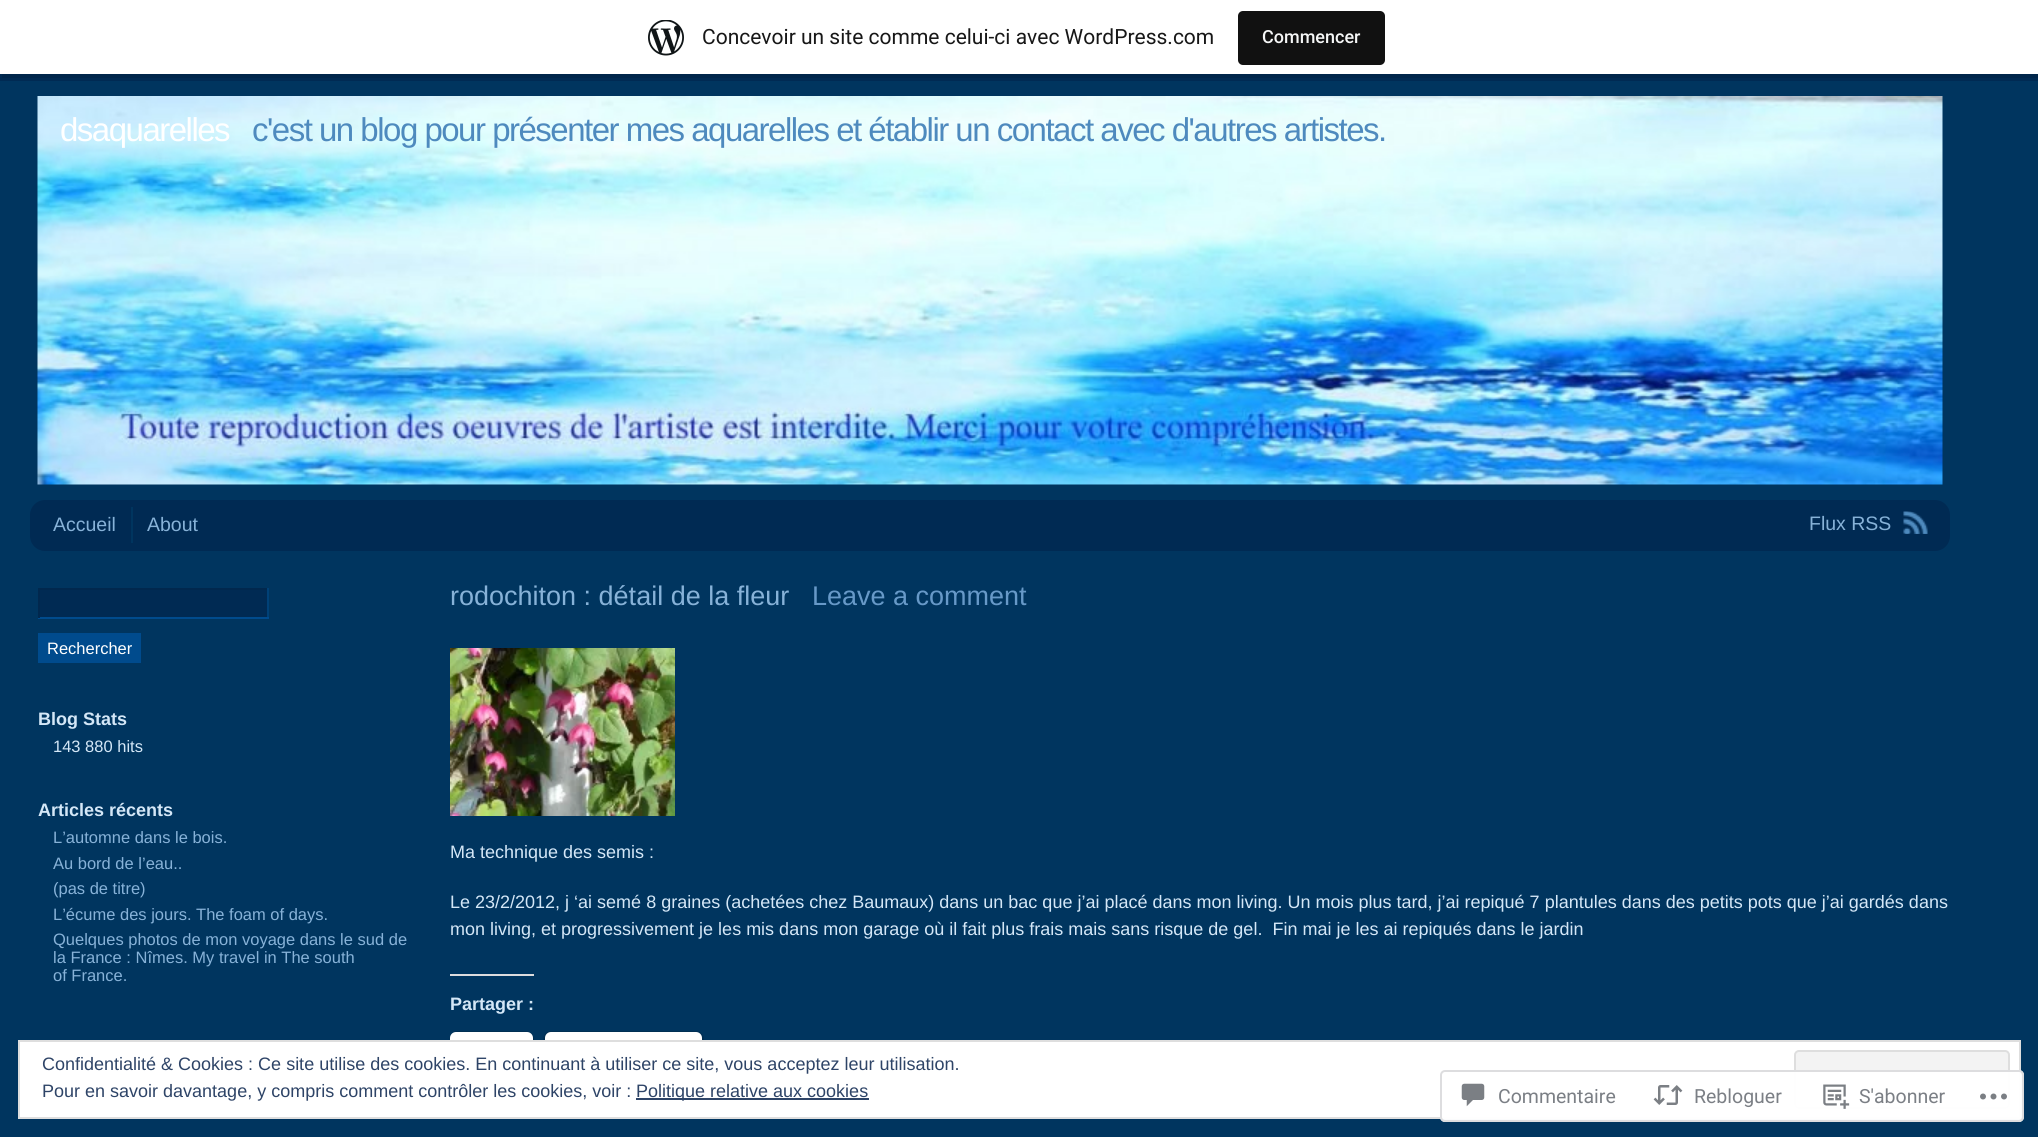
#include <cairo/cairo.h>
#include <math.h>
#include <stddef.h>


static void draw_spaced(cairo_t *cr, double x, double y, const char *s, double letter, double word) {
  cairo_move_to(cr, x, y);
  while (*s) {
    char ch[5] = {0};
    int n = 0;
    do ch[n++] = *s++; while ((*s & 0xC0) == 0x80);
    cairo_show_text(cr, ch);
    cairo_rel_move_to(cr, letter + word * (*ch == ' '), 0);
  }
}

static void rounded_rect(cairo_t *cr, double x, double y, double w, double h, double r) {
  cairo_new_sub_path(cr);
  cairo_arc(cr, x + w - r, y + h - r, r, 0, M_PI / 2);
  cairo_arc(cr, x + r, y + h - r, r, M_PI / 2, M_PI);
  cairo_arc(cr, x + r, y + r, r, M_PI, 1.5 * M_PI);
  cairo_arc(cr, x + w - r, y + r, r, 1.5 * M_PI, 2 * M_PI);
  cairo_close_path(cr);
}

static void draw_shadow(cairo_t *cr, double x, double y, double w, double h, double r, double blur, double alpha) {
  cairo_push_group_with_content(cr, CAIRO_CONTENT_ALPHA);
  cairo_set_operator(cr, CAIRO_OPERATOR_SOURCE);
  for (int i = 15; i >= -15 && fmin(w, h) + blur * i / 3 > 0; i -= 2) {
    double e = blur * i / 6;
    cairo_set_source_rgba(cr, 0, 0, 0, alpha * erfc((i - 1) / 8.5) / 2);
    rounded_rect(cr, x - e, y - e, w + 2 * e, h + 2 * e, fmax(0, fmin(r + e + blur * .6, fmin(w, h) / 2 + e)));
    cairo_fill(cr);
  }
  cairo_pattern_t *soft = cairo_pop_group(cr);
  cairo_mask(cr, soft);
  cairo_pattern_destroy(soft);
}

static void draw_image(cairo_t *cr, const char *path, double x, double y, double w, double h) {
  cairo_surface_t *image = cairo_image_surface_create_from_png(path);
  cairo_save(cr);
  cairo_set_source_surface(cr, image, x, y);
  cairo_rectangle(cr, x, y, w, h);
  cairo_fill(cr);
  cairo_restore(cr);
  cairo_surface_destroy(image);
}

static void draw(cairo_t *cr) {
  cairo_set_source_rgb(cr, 0, 53 / 255.0, 95 / 255.0);
  cairo_paint(cr);
  cairo_set_source_rgb(cr, 0, 42 / 255.0, 83 / 255.0);
  cairo_rectangle(cr, 0, 74, 2038, 7);
  cairo_fill(cr);
  cairo_set_source_rgb(cr, 0, 38 / 255.0, 75 / 255.0);
  cairo_new_path(cr);
  cairo_move_to(cr, 2, 74);
  cairo_line_to(cr, 2, 78);
  cairo_line_to(cr, 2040, 78);
  cairo_line_to(cr, 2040, 5);
  cairo_line_to(cr, 2038, 5);
  cairo_line_to(cr, 2038, 74);
  cairo_close_path(cr);
  cairo_fill(cr);
  cairo_set_source_rgb(cr, 1, 1, 1);
  cairo_rectangle(cr, 0, 0, 2038, 74);
  cairo_fill(cr);
  draw_image(cr, "images/1.png", 648, 20, 36, 36);
  cairo_set_source_rgb(cr, 17 / 255.0, 17 / 255.0, 17 / 255.0);
  rounded_rect(cr, 1238, 11, 147, 54, 5);
  cairo_fill(cr);
  draw_image(cr, "images/2.png", 37, 96, 1906, 389);
  cairo_set_source_rgb(cr, 0, 42 / 255.0, 83 / 255.0);
  rounded_rect(cr, 30, 500, 1920, 51, 15);
  cairo_fill(cr);
  cairo_set_source_rgb(cr, 0, 53 / 255.0, 95 / 255.0);
  cairo_rectangle(cr, 131, 507, 2, 36);
  cairo_fill(cr);
  draw_image(cr, "images/3.png", 1903, 511, 25, 23);
  cairo_set_source_rgb(cr, 0, 42 / 255.0, 83 / 255.0);
  cairo_rectangle(cr, 40, 590, 227, 27);
  cairo_fill(cr);
  cairo_set_source_rgb(cr, 1 / 255.0, 40 / 255.0, 78 / 255.0);
  cairo_rectangle(cr, 38, 588, 231, 2);
  cairo_fill(cr);
  cairo_set_source_rgb(cr, 0, 65 / 255.0, 119 / 255.0);
  cairo_rectangle(cr, 267, 588, 2, 30);
  cairo_fill(cr);
  cairo_set_source_rgb(cr, 0, 75 / 255.0, 141 / 255.0);
  cairo_rectangle(cr, 38, 617, 231, 2);
  cairo_fill(cr);
  cairo_set_source_rgb(cr, 1 / 255.0, 40 / 255.0, 78 / 255.0);
  cairo_rectangle(cr, 38, 588, 2, 30);
  cairo_fill(cr);
  cairo_set_source_rgb(cr, 0, 75 / 255.0, 141 / 255.0);
  cairo_rectangle(cr, 38, 633, 103, 30);
  cairo_fill(cr);
  draw_image(cr, "images/4.png", 450, 648, 225, 168);
  cairo_set_source_rgb(cr, 220 / 255.0, 220 / 255.0, 222 / 255.0);
  cairo_rectangle(cr, 450, 974, 84, 2);
  cairo_fill(cr);
  cairo_save(cr);
  cairo_rectangle(cr, 450, 627, 1500, 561);
  cairo_clip(cr);
  rounded_rect(cr, 450, 1032, 83, 46, 7);
  cairo_set_source_rgb(cr, 0, 47 / 255.0, 84 / 255.0);
  cairo_stroke(cr);
  cairo_restore(cr);
  cairo_set_source_rgb(cr, 0, 0, 0);
  draw_shadow(cr, 450, 1034, 83, 45, 6, 1.5, 0.12);
  cairo_set_source_rgb(cr, 1, 1, 1);
  rounded_rect(cr, 450, 1032, 83, 45, 6);
  cairo_fill(cr);
  rounded_rect(cr, 544, 1032, 159, 46, 7);
  cairo_set_source_rgb(cr, 0, 47 / 255.0, 84 / 255.0);
  cairo_stroke(cr);
  cairo_set_source_rgb(cr, 0, 0, 0);
  draw_shadow(cr, 545, 1034, 157, 45, 6, 1.5, 0.12);
  cairo_set_source_rgb(cr, 1, 1, 1);
  rounded_rect(cr, 545, 1032, 157, 45, 6);
  cairo_fill(cr);
  cairo_rectangle(cr, 19, 1041, 2001, 77);
  cairo_fill_preserve(cr);
  cairo_set_source_rgb(cr, 222 / 255.0, 222 / 255.0, 222 / 255.0);
  cairo_stroke(cr);
  cairo_set_source_rgb(cr, 243 / 255.0, 243 / 255.0, 243 / 255.0);
  rounded_rect(cr, 1795, 1051, 214, 57, 4);
  cairo_fill_preserve(cr);
  cairo_set_source_rgb(cr, 222 / 255.0, 222 / 255.0, 222 / 255.0);
  cairo_stroke(cr);
  cairo_set_source_rgb(cr, 46 / 255.0, 68 / 255.0, 103 / 255.0);
  cairo_rectangle(cr, 636, 1098, 233, 2);
  cairo_fill(cr);
  cairo_set_source_rgba(cr, 1, 1, 1, 0.98);
  rounded_rect(cr, 1440, 1070, 584, 52, 5);
  cairo_fill(cr);
  rounded_rect(cr, 1441, 1071, 582, 50, 4);
  cairo_set_source_rgba(cr, 220 / 255.0, 220 / 255.0, 222 / 255.0, 0.98);
  cairo_stroke(cr);
  draw_image(cr, "images/5.png", 1461, 1083, 24, 24);
  draw_image(cr, "images/6.png", 1653, 1085, 30, 20);
  draw_image(cr, "images/7.png", 1823, 1084, 27, 25);
  draw_image(cr, "images/8.png", 1980, 1093, 27, 7);
  cairo_select_font_face(cr, "Roboto", CAIRO_FONT_SLANT_NORMAL, CAIRO_FONT_WEIGHT_NORMAL);
  cairo_set_font_size(cr, 21);
  cairo_set_source_rgb(cr, 23 / 255.0, 23 / 255.0, 23 / 255.0);
  cairo_move_to(cr, 702, 44);
  cairo_show_text(cr, "Concevoir un site comme celui-ci avec WordPress.com");
  cairo_select_font_face(cr, "Roboto Medium", CAIRO_FONT_SLANT_NORMAL, CAIRO_FONT_WEIGHT_NORMAL);
  cairo_set_font_size(cr, 18);
  cairo_set_source_rgb(cr, 246 / 255.0, 247 / 255.0, 247 / 255.0);
  cairo_move_to(cr, 1262, 43);
  cairo_show_text(cr, "Commencer");
  cairo_select_font_face(cr, "Liberation Sans", CAIRO_FONT_SLANT_NORMAL, CAIRO_FONT_WEIGHT_NORMAL);
  cairo_set_font_size(cr, 33);
  cairo_set_source_rgb(cr, 1, 1, 1);
  draw_spaced(cr, 60, 141, "dsaquarelles", -1.5, 0);
  cairo_set_source_rgb(cr, 78 / 255.0, 138 / 255.0, 190 / 255.0);
  draw_spaced(cr, 252, 141, "c'est un blog pour présenter mes aquarelles et établir un contact avec d'autres artistes.", -1.5, 0);
  cairo_set_font_size(cr, 19.5);
  cairo_set_source_rgb(cr, 135 / 255.0, 178 / 255.0, 216 / 255.0);
  cairo_move_to(cr, 53, 531);
  cairo_show_text(cr, "Accueil");
  cairo_move_to(cr, 147, 531);
  cairo_show_text(cr, "About");
  cairo_move_to(cr, 1809, 530);
  cairo_show_text(cr, "Flux RSS");
  cairo_set_font_size(cr, 16.5);
  cairo_set_source_rgb(cr, 1, 1, 1);
  cairo_move_to(cr, 47, 654);
  cairo_show_text(cr, "Rechercher");
  cairo_select_font_face(cr, "Liberation Sans", CAIRO_FONT_SLANT_NORMAL, CAIRO_FONT_WEIGHT_BOLD);
  cairo_set_font_size(cr, 18);
  cairo_set_source_rgb(cr, 212 / 255.0, 231 / 255.0, 247 / 255.0);
  cairo_move_to(cr, 38, 725);
  cairo_show_text(cr, "Blog Stats");
  cairo_select_font_face(cr, "Liberation Sans", CAIRO_FONT_SLANT_NORMAL, CAIRO_FONT_WEIGHT_NORMAL);
  cairo_set_font_size(cr, 16.5);
  cairo_move_to(cr, 53, 752);
  cairo_show_text(cr, "143 880 hits");
  cairo_select_font_face(cr, "Liberation Sans", CAIRO_FONT_SLANT_NORMAL, CAIRO_FONT_WEIGHT_BOLD);
  cairo_set_font_size(cr, 18);
  cairo_move_to(cr, 38, 816);
  cairo_show_text(cr, "Articles récents");
  cairo_select_font_face(cr, "Liberation Sans", CAIRO_FONT_SLANT_NORMAL, CAIRO_FONT_WEIGHT_NORMAL);
  cairo_set_font_size(cr, 16.5);
  cairo_set_source_rgb(cr, 135 / 255.0, 178 / 255.0, 216 / 255.0);
  cairo_move_to(cr, 53, 843);
  cairo_show_text(cr, "L’automne dans le bois.");
  cairo_move_to(cr, 53, 869);
  cairo_show_text(cr, "Au bord de l’eau..");
  cairo_move_to(cr, 53, 894);
  cairo_show_text(cr, "(pas de titre)");
  cairo_move_to(cr, 53, 920);
  cairo_show_text(cr, "L’écume des jours. The foam of days.");
  cairo_move_to(cr, 53, 945);
  cairo_show_text(cr, "Quelques photos de mon voyage dans le sud de");
  cairo_move_to(cr, 53, 963);
  cairo_show_text(cr, "la France : Nîmes. My travel in The south");
  cairo_move_to(cr, 53, 981);
  cairo_show_text(cr, "of France.");
  cairo_set_font_size(cr, 27);
  cairo_move_to(cr, 450, 605);
  cairo_show_text(cr, "rodochiton : détail de la fleur");
  cairo_set_source_rgb(cr, 103 / 255.0, 153 / 255.0, 200 / 255.0);
  cairo_move_to(cr, 812, 605);
  cairo_show_text(cr, "Leave a comment");
  cairo_set_font_size(cr, 18);
  cairo_set_source_rgb(cr, 212 / 255.0, 231 / 255.0, 247 / 255.0);
  cairo_move_to(cr, 450, 858);
  cairo_show_text(cr, "Ma technique des semis :");
  cairo_move_to(cr, 450, 908);
  cairo_show_text(cr, "Le 23/2/2012, j ‘ai semé 8 graines (achetées chez Baumaux) dans un bac que j’ai placé dans mon living. Un mois plus tard, j’ai repiqué 7 plantules dans des petits pots que j’ai gardés dans");
  cairo_move_to(cr, 450, 935);
  cairo_show_text(cr, "mon living, et progressivement je les mis dans mon garage où il fait plus frais mais sans risque de gel.  Fin mai je les ai repiqués dans le jardin");
  cairo_select_font_face(cr, "Liberation Sans", CAIRO_FONT_SLANT_NORMAL, CAIRO_FONT_WEIGHT_BOLD);
  cairo_move_to(cr, 450, 1010);
  cairo_show_text(cr, "Partager :");
  cairo_select_font_face(cr, "Liberation Sans", CAIRO_FONT_SLANT_NORMAL, CAIRO_FONT_WEIGHT_NORMAL);
  cairo_set_source_rgb(cr, 46 / 255.0, 68 / 255.0, 103 / 255.0);
  cairo_move_to(cr, 42, 1070);
  cairo_show_text(cr, "Confidentialité & Cookies : Ce site utilise des cookies. En continuant à utiliser ce site, vous acceptez leur utilisation.");
  cairo_move_to(cr, 42, 1097);
  cairo_show_text(cr, "Pour en savoir davantage, y compris comment contrôler les cookies, voir :");
  cairo_move_to(cr, 636, 1097);
  cairo_show_text(cr, "Politique relative aux cookies");
  cairo_select_font_face(cr, "Roboto", CAIRO_FONT_SLANT_NORMAL, CAIRO_FONT_WEIGHT_NORMAL);
  cairo_set_font_size(cr, 19.5);
  cairo_set_source_rgb(cr, 123 / 255.0, 127 / 255.0, 133 / 255.0);
  cairo_move_to(cr, 1498, 1103);
  cairo_show_text(cr, "Commentaire");
  cairo_move_to(cr, 1694, 1103);
  cairo_show_text(cr, "Rebloguer");
  cairo_move_to(cr, 1859, 1103);
  cairo_show_text(cr, "S'abonner");
}

int main(void) {
  cairo_surface_t *surface = cairo_image_surface_create(CAIRO_FORMAT_RGB24, 2038, 1137);
  cairo_t *cr = cairo_create(surface);
  cairo_font_options_t *options = cairo_font_options_create();
  cairo_font_options_set_hint_metrics(options, CAIRO_HINT_METRICS_OFF);
  cairo_font_options_set_hint_style(options, CAIRO_HINT_STYLE_NONE);
  cairo_set_font_options(cr, options);
  cairo_set_miter_limit(cr, 4);
  draw(cr);
  cairo_surface_write_to_png(surface, "out.png");
  cairo_font_options_destroy(options);
  cairo_destroy(cr);
  cairo_surface_destroy(surface);
  return 0;
}
